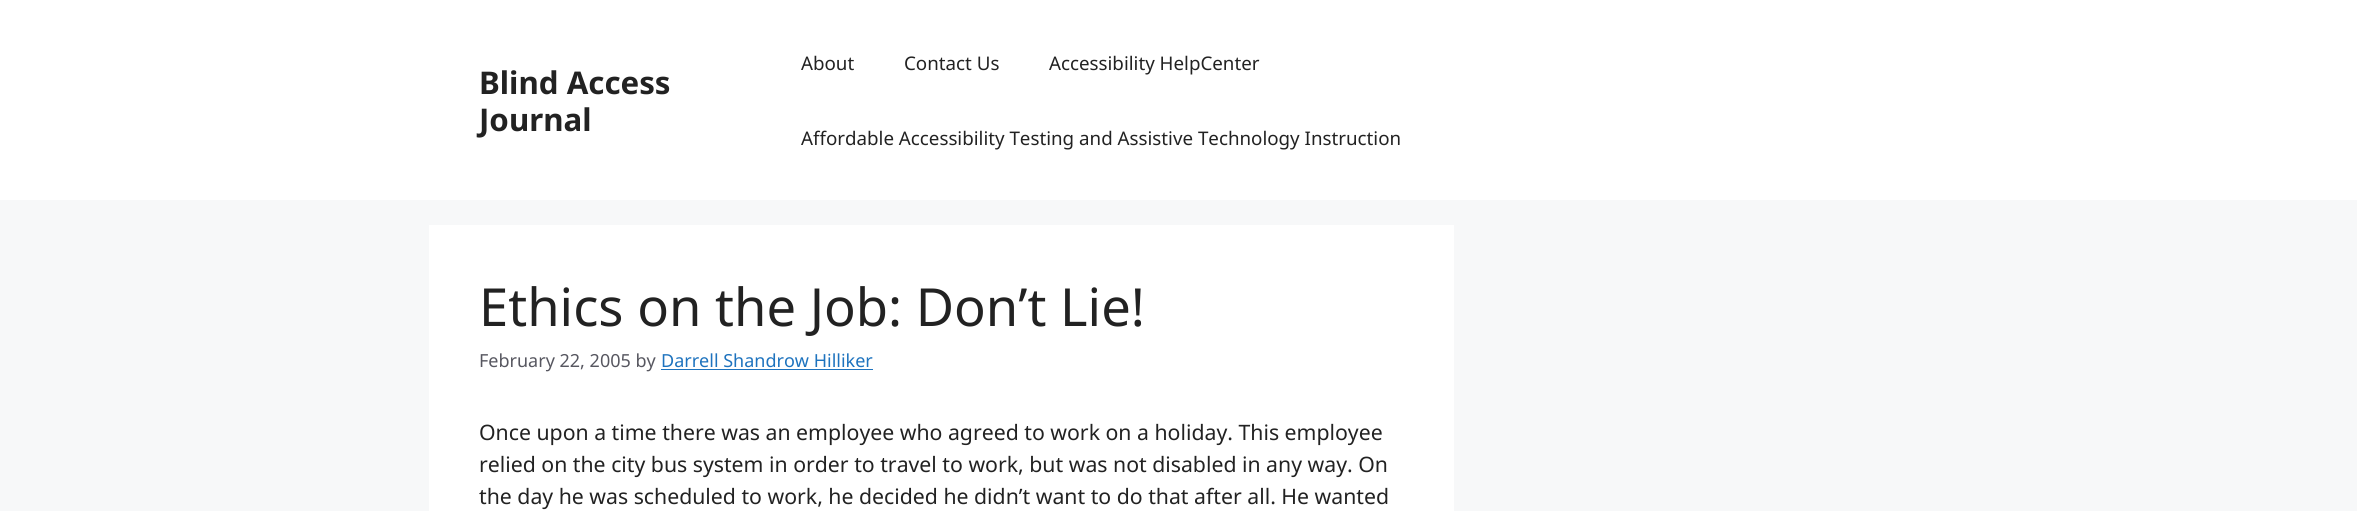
#include <cairo/cairo.h>
#include <math.h>
#include <stddef.h>


static void draw(cairo_t *cr) {
  cairo_set_source_rgb(cr, 247 / 255.0, 248 / 255.0, 249 / 255.0);
  cairo_paint(cr);
  cairo_set_source_rgb(cr, 1, 1, 1);
  cairo_rectangle(cr, 0, 0, 2357, 200);
  cairo_fill(cr);
  cairo_rectangle(cr, 429, 225, 1025, 286);
  cairo_fill(cr);
  cairo_set_source_rgb(cr, 30 / 255.0, 115 / 255.0, 190 / 255.0);
  cairo_rectangle(cr, 661, 369, 212, 1);
  cairo_fill(cr);
  cairo_select_font_face(cr, "Noto Sans", CAIRO_FONT_SLANT_NORMAL, CAIRO_FONT_WEIGHT_BOLD);
  cairo_set_font_size(cr, 31.25);
  cairo_set_source_rgb(cr, 34 / 255.0, 34 / 255.0, 34 / 255.0);
  cairo_move_to(cr, 479, 94);
  cairo_show_text(cr, "Blind Access");
  cairo_move_to(cr, 479, 131);
  cairo_show_text(cr, "Journal");
  cairo_select_font_face(cr, "Noto Sans", CAIRO_FONT_SLANT_NORMAL, CAIRO_FONT_WEIGHT_NORMAL);
  cairo_set_font_size(cr, 18.75);
  cairo_move_to(cr, 801, 70);
  cairo_show_text(cr, "About");
  cairo_move_to(cr, 904, 70);
  cairo_show_text(cr, "Contact Us");
  cairo_move_to(cr, 1049, 70);
  cairo_show_text(cr, "Accessibility HelpCenter");
  cairo_move_to(cr, 801, 145);
  cairo_show_text(cr, "Affordable Accessibility Testing and Assistive Technology Instruction");
  cairo_set_font_size(cr, 52.5);
  cairo_move_to(cr, 479, 326);
  cairo_show_text(cr, "Ethics on the Job: Don’t Lie!");
  cairo_set_font_size(cr, 18);
  cairo_set_source_rgb(cr, 87 / 255.0, 87 / 255.0, 96 / 255.0);
  cairo_move_to(cr, 479, 367);
  cairo_show_text(cr, "February 22, 2005 by");
  cairo_set_source_rgb(cr, 30 / 255.0, 115 / 255.0, 190 / 255.0);
  cairo_move_to(cr, 661, 367);
  cairo_show_text(cr, "Darrell Shandrow Hilliker");
  cairo_set_font_size(cr, 21.25);
  cairo_set_source_rgb(cr, 34 / 255.0, 34 / 255.0, 34 / 255.0);
  cairo_move_to(cr, 479, 440);
  cairo_show_text(cr, "Once upon a time there was an employee who agreed to work on a holiday. This employee");
  cairo_move_to(cr, 479, 472);
  cairo_show_text(cr, "relied on the city bus system in order to travel to work, but was not disabled in any way. On");
  cairo_move_to(cr, 479, 504);
  cairo_show_text(cr, "the day he was scheduled to work, he decided he didn’t want to do that after all. He wanted");
}

int main(void) {
  cairo_surface_t *surface = cairo_image_surface_create(CAIRO_FORMAT_RGB24, 2357, 511);
  cairo_t *cr = cairo_create(surface);
  cairo_font_options_t *options = cairo_font_options_create();
  cairo_font_options_set_hint_metrics(options, CAIRO_HINT_METRICS_OFF);
  cairo_font_options_set_hint_style(options, CAIRO_HINT_STYLE_NONE);
  cairo_set_font_options(cr, options);
  cairo_set_miter_limit(cr, 4);
  draw(cr);
  cairo_surface_write_to_png(surface, "out.png");
  cairo_font_options_destroy(options);
  cairo_destroy(cr);
  cairo_surface_destroy(surface);
  return 0;
}
